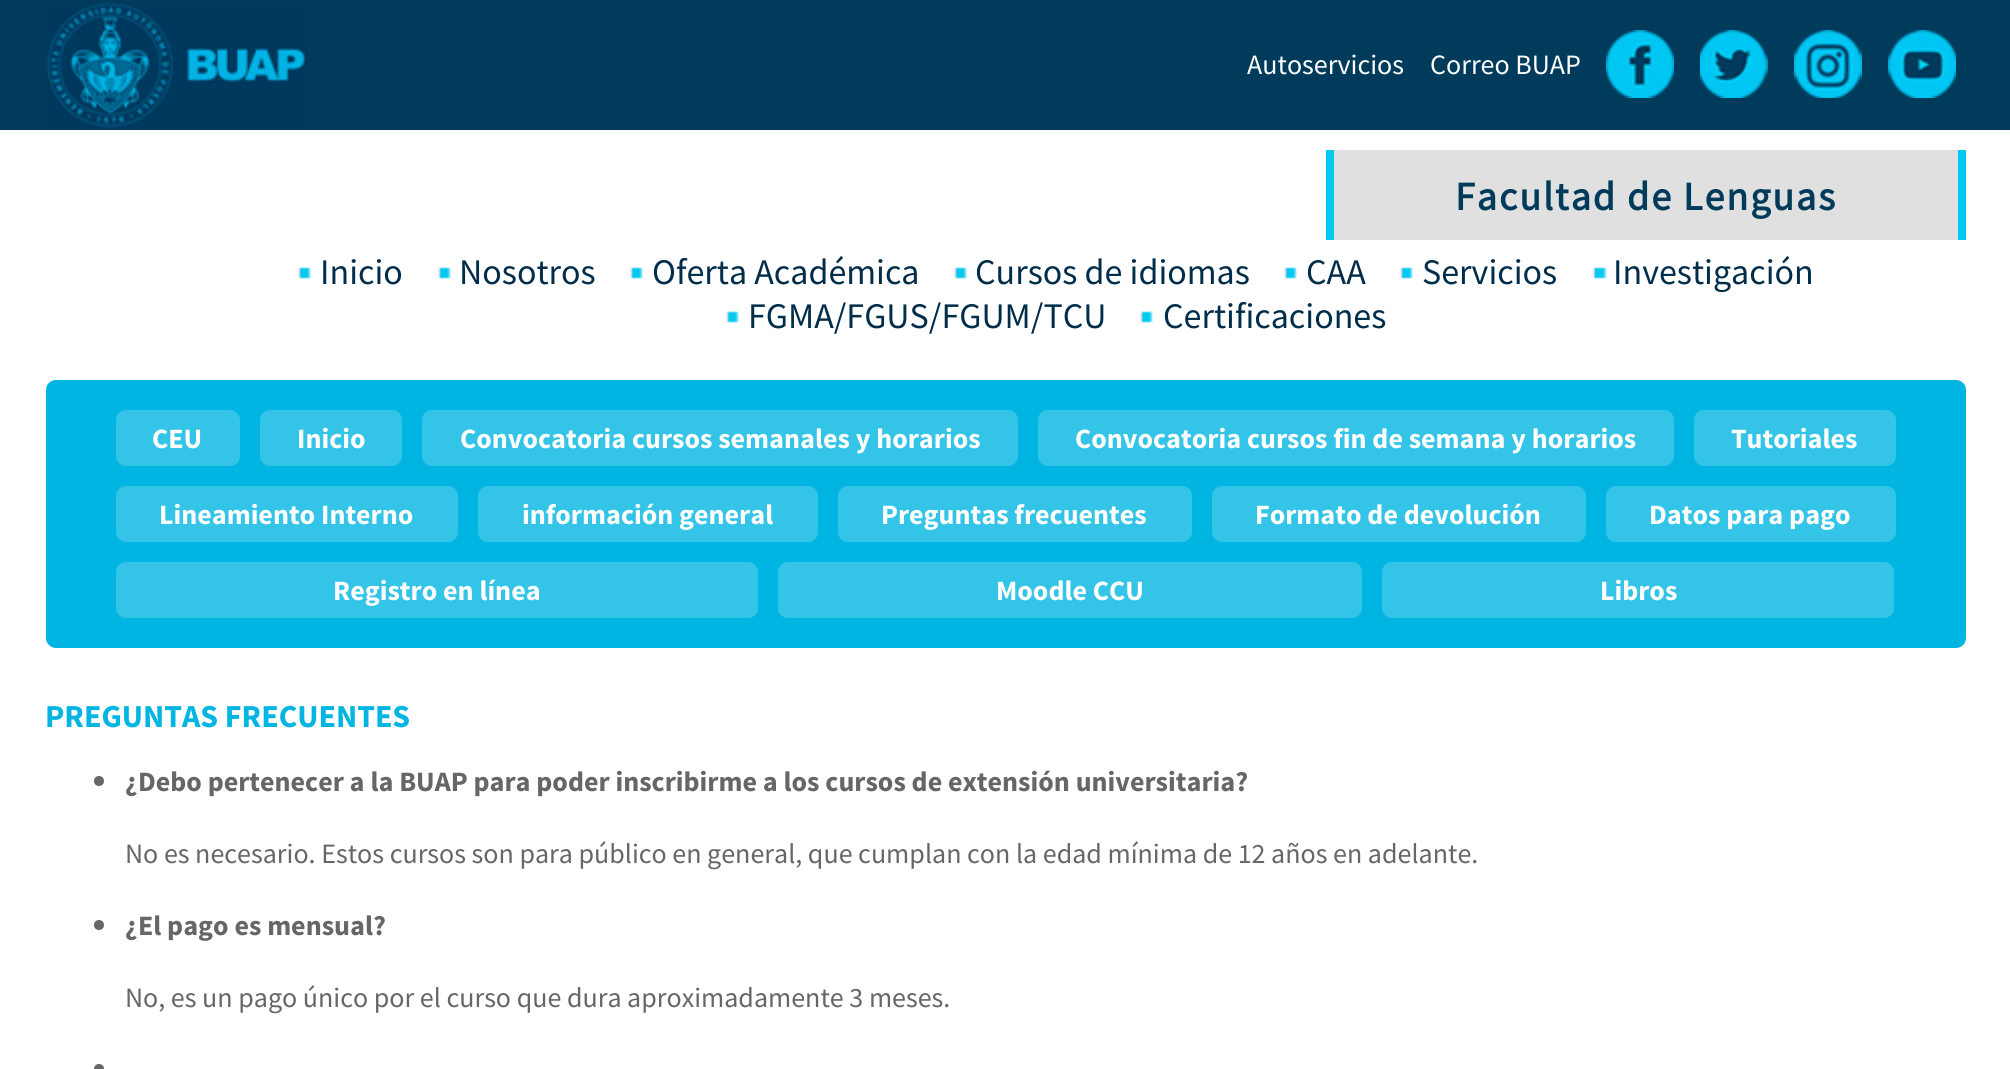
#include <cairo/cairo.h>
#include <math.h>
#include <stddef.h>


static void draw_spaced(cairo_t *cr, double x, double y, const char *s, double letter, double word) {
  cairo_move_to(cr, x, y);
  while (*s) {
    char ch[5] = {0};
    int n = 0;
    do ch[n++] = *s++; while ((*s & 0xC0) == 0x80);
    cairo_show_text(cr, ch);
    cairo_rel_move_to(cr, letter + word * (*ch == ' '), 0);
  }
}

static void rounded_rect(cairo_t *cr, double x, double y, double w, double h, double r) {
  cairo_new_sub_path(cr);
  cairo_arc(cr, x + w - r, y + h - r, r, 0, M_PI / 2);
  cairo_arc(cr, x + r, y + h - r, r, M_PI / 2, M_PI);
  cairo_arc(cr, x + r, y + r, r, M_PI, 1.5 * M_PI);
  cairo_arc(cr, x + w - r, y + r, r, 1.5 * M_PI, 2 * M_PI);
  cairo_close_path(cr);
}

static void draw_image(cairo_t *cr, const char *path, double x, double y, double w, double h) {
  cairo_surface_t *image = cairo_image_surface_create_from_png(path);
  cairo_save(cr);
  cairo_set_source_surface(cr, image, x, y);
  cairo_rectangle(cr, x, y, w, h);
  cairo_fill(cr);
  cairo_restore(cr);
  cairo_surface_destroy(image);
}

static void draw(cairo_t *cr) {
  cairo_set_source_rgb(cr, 1, 1, 1);
  cairo_paint(cr);
  cairo_set_source_rgb(cr, 0, 59 / 255.0, 92 / 255.0);
  cairo_rectangle(cr, 0, 0, 2010, 130);
  cairo_fill(cr);
  draw_image(cr, "images/1.png", 46, 2, 262, 126);
  draw_image(cr, "images/2.png", 1606, 30, 68, 68);
  draw_image(cr, "images/3.png", 1700, 30, 68, 68);
  draw_image(cr, "images/4.png", 1794, 30, 68, 68);
  draw_image(cr, "images/5.png", 1888, 30, 68, 68);
  cairo_set_source_rgb(cr, 224 / 255.0, 224 / 255.0, 224 / 255.0);
  cairo_rectangle(cr, 1334, 150, 624, 90);
  cairo_fill(cr);
  cairo_set_source_rgb(cr, 0, 201 / 255.0, 240 / 255.0);
  cairo_rectangle(cr, 1958, 150, 8, 90);
  cairo_fill(cr);
  cairo_rectangle(cr, 1326, 150, 8, 90);
  cairo_fill(cr);
  draw_image(cr, "images/6.png", 297, 267, 14, 12);
  draw_image(cr, "images/6.png", 437, 267, 14, 12);
  draw_image(cr, "images/6.png", 629, 267, 14, 12);
  draw_image(cr, "images/6.png", 953, 267, 14, 12);
  draw_image(cr, "images/6.png", 1283, 267, 14, 12);
  draw_image(cr, "images/6.png", 1399, 267, 14, 12);
  draw_image(cr, "images/7.png", 1592, 267, 15, 12);
  draw_image(cr, "images/6.png", 725, 311, 14, 12);
  draw_image(cr, "images/6.png", 1139, 311, 14, 12);
  cairo_set_source_rgb(cr, 0, 181 / 255.0, 226 / 255.0);
  rounded_rect(cr, 46, 380, 1920, 268, 10);
  cairo_fill(cr);
  cairo_set_source_rgb(cr, 51 / 255.0, 196 / 255.0, 232 / 255.0);
  rounded_rect(cr, 116, 410, 124, 56, 10);
  cairo_fill(cr);
  rounded_rect(cr, 260, 410, 142, 56, 10);
  cairo_fill(cr);
  rounded_rect(cr, 422, 410, 596, 56, 10);
  cairo_fill(cr);
  rounded_rect(cr, 1038, 410, 636, 56, 10);
  cairo_fill(cr);
  rounded_rect(cr, 1694, 410, 202, 56, 10);
  cairo_fill(cr);
  rounded_rect(cr, 116, 486, 342, 56, 10);
  cairo_fill(cr);
  rounded_rect(cr, 478, 486, 340, 56, 10);
  cairo_fill(cr);
  rounded_rect(cr, 838, 486, 354, 56, 10);
  cairo_fill(cr);
  rounded_rect(cr, 1212, 486, 374, 56, 10);
  cairo_fill(cr);
  rounded_rect(cr, 1606, 486, 290, 56, 10);
  cairo_fill(cr);
  rounded_rect(cr, 116, 562, 642, 56, 10);
  cairo_fill(cr);
  rounded_rect(cr, 778, 562, 584, 56, 10);
  cairo_fill(cr);
  rounded_rect(cr, 1382, 562, 512, 56, 10);
  cairo_fill(cr);
  cairo_set_source_rgb(cr, 102 / 255.0, 102 / 255.0, 102 / 255.0);
  cairo_arc(cr, 99, 781, 5, 0, 2 * M_PI);
  cairo_fill(cr);
  cairo_arc(cr, 99, 925, 5, 0, 2 * M_PI);
  cairo_fill(cr);
  cairo_arc(cr, 99, 1069, 5, 0, 2 * M_PI);
  cairo_fill(cr);
  cairo_select_font_face(cr, "Source Sans Pro", CAIRO_FONT_SLANT_NORMAL, CAIRO_FONT_WEIGHT_NORMAL);
  cairo_set_font_size(cr, 28);
  cairo_set_source_rgb(cr, 1, 1, 1);
  cairo_move_to(cr, 1247, 74);
  cairo_show_text(cr, "Autoservicios");
  cairo_move_to(cr, 1430, 74);
  cairo_show_text(cr, "Correo BUAP");
  cairo_select_font_face(cr, "Source Sans Pro", CAIRO_FONT_SLANT_NORMAL, CAIRO_FONT_WEIGHT_BOLD);
  cairo_set_font_size(cr, 40);
  cairo_set_source_rgb(cr, 0, 59 / 255.0, 92 / 255.0);
  draw_spaced(cr, 1455, 210, "Facultad de Lenguas", 2, 0);
  cairo_select_font_face(cr, "Source Sans Pro", CAIRO_FONT_SLANT_NORMAL, CAIRO_FONT_WEIGHT_NORMAL);
  cairo_set_font_size(cr, 36);
  cairo_set_source_rgb(cr, 0, 45 / 255.0, 74 / 255.0);
  cairo_move_to(cr, 320, 284);
  cairo_show_text(cr, "Inicio");
  cairo_move_to(cr, 459, 284);
  cairo_show_text(cr, "Nosotros");
  cairo_move_to(cr, 652, 284);
  cairo_show_text(cr, "Oferta Académica");
  cairo_move_to(cr, 975, 284);
  cairo_show_text(cr, "Cursos de idiomas");
  cairo_move_to(cr, 1306, 284);
  cairo_show_text(cr, "CAA");
  cairo_move_to(cr, 1422, 284);
  cairo_show_text(cr, "Servicios");
  cairo_move_to(cr, 1613, 284);
  cairo_show_text(cr, "Investigación");
  cairo_move_to(cr, 748, 328);
  cairo_show_text(cr, "FGMA/FGUS/FGUM/TCU");
  cairo_move_to(cr, 1163, 328);
  cairo_show_text(cr, "Certificaciones");
  cairo_select_font_face(cr, "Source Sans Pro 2", CAIRO_FONT_SLANT_NORMAL, CAIRO_FONT_WEIGHT_BOLD);
  cairo_set_font_size(cr, 28);
  cairo_set_source_rgb(cr, 1, 1, 1);
  cairo_move_to(cr, 152, 448);
  cairo_show_text(cr, "CEU");
  cairo_move_to(cr, 297, 448);
  cairo_show_text(cr, "Inicio");
  cairo_move_to(cr, 460, 448);
  cairo_show_text(cr, "Convocatoria cursos semanales y horarios");
  cairo_move_to(cr, 1075, 448);
  cairo_show_text(cr, "Convocatoria cursos fin de semana y horarios");
  cairo_move_to(cr, 1731, 448);
  cairo_show_text(cr, "Tutoriales");
  cairo_move_to(cr, 159, 524);
  cairo_show_text(cr, "Lineamiento Interno");
  cairo_move_to(cr, 522, 524);
  cairo_show_text(cr, "información general");
  cairo_move_to(cr, 881, 524);
  cairo_show_text(cr, "Preguntas frecuentes");
  cairo_move_to(cr, 1255, 524);
  cairo_show_text(cr, "Formato de devolución");
  cairo_move_to(cr, 1649, 524);
  cairo_show_text(cr, "Datos para pago");
  cairo_move_to(cr, 333, 600);
  cairo_show_text(cr, "Registro en línea");
  cairo_move_to(cr, 996, 600);
  cairo_show_text(cr, "Moodle CCU");
  cairo_move_to(cr, 1600, 600);
  cairo_show_text(cr, "Libros");
  cairo_set_font_size(cr, 32);
  cairo_set_source_rgb(cr, 0, 181 / 255.0, 226 / 255.0);
  cairo_move_to(cr, 45, 727);
  cairo_show_text(cr, "PREGUNTAS FRECUENTES");
  cairo_set_font_size(cr, 28);
  cairo_set_source_rgb(cr, 102 / 255.0, 102 / 255.0, 102 / 255.0);
  cairo_move_to(cr, 125, 791);
  cairo_show_text(cr, "¿Debo pertenecer a la BUAP para poder inscribirme a los cursos de extensión universitaria?");
  cairo_select_font_face(cr, "Source Sans Pro", CAIRO_FONT_SLANT_NORMAL, CAIRO_FONT_WEIGHT_NORMAL);
  cairo_move_to(cr, 125, 863);
  cairo_show_text(cr, "No es necesario. Estos cursos son para público en general, que cumplan con la edad mínima de 12 años en adelante.");
  cairo_select_font_face(cr, "Source Sans Pro 2", CAIRO_FONT_SLANT_NORMAL, CAIRO_FONT_WEIGHT_BOLD);
  cairo_move_to(cr, 125, 935);
  cairo_show_text(cr, "¿El pago es mensual?");
  cairo_select_font_face(cr, "Source Sans Pro", CAIRO_FONT_SLANT_NORMAL, CAIRO_FONT_WEIGHT_NORMAL);
  cairo_move_to(cr, 125, 1007);
  cairo_show_text(cr, "No, es un pago único por el curso que dura aproximadamente 3 meses.");
}

int main(void) {
  cairo_surface_t *surface = cairo_image_surface_create(CAIRO_FORMAT_RGB24, 2010, 1069);
  cairo_t *cr = cairo_create(surface);
  cairo_font_options_t *options = cairo_font_options_create();
  cairo_font_options_set_hint_metrics(options, CAIRO_HINT_METRICS_OFF);
  cairo_font_options_set_hint_style(options, CAIRO_HINT_STYLE_NONE);
  cairo_set_font_options(cr, options);
  cairo_set_miter_limit(cr, 4);
  draw(cr);
  cairo_surface_write_to_png(surface, "out.png");
  cairo_font_options_destroy(options);
  cairo_destroy(cr);
  cairo_surface_destroy(surface);
  return 0;
}
